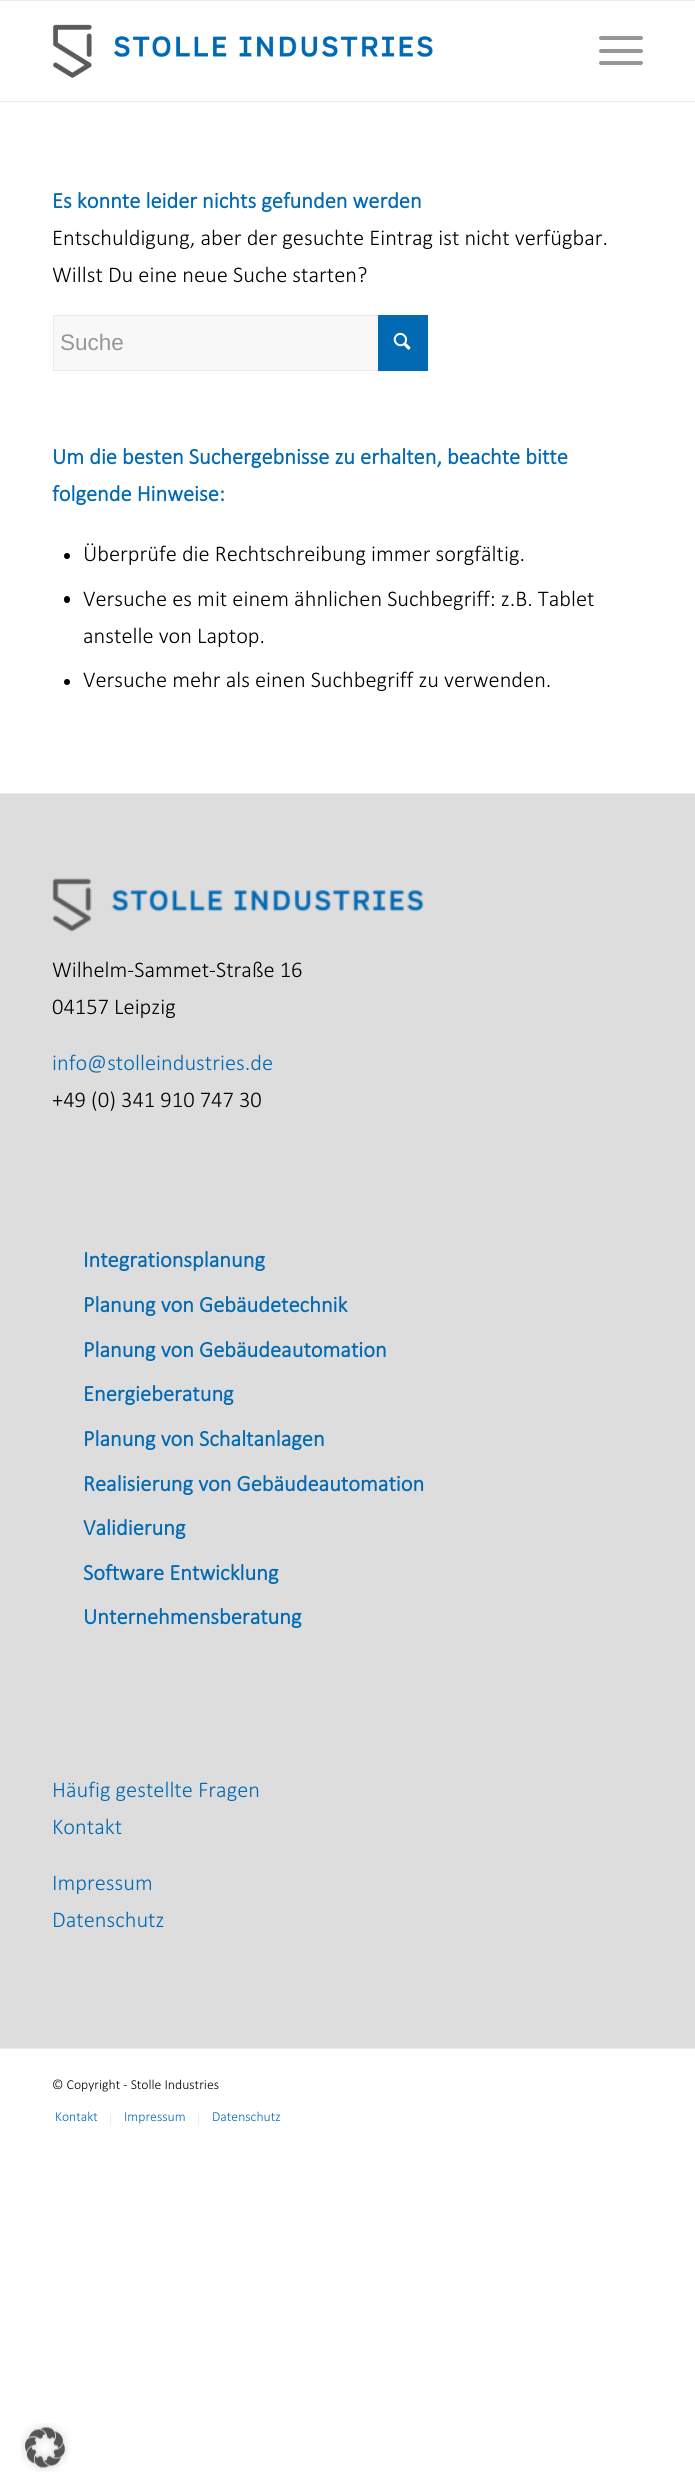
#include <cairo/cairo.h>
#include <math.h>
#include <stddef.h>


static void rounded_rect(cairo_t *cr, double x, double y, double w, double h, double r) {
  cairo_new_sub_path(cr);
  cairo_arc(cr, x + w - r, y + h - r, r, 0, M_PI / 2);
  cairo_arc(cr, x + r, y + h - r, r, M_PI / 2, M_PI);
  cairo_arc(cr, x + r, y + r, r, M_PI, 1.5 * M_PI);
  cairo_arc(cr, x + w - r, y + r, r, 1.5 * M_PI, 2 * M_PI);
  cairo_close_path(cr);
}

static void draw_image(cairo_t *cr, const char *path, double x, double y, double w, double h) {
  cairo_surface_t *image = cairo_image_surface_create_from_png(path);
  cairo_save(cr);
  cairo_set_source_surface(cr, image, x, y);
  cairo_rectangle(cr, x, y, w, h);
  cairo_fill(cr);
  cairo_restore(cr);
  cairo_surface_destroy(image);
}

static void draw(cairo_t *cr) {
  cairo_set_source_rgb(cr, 1, 1, 1);
  cairo_paint(cr);
  cairo_set_source_rgb(cr, 235 / 255.0, 235 / 255.0, 235 / 255.0);
  cairo_rectangle(cr, 0, 0, 695, 1);
  cairo_fill(cr);
  cairo_rectangle(cr, 0, 101, 695, 1);
  cairo_fill(cr);
  draw_image(cr, "images/1.png", 52, 24, 381, 54);
  cairo_set_source_rgb(cr, 150 / 255.0, 150 / 255.0, 150 / 255.0);
  rounded_rect(cr, 599, 49, 44, 4, 2);
  cairo_fill(cr);
  rounded_rect(cr, 599, 36, 44, 4, 2);
  cairo_fill(cr);
  rounded_rect(cr, 599, 61, 44, 4, 2);
  cairo_fill(cr);
  cairo_set_source_rgb(cr, 248 / 255.0, 248 / 255.0, 248 / 255.0);
  cairo_rectangle(cr, 54, 316, 324, 54);
  cairo_fill(cr);
  cairo_rectangle(cr, 53.5, 315.5, 374, 55);
  cairo_set_source_rgb(cr, 235 / 255.0, 235 / 255.0, 235 / 255.0);
  cairo_set_line_width(cr, 1);
  cairo_stroke(cr);
  cairo_set_source_rgb(cr, 2 / 255.0, 105 / 255.0, 179 / 255.0);
  cairo_rectangle(cr, 378, 315, 50, 56);
  cairo_fill(cr);
  draw_image(cr, "images/2.png", 393, 332, 18, 18);
  cairo_set_source_rgb(cr, 0, 0, 0);
  cairo_arc(cr, 67, 556, 3, 0, 2 * M_PI);
  cairo_fill(cr);
  rounded_rect(cr, 64, 596, 6, 7, 3);
  cairo_fill(cr);
  cairo_arc(cr, 67, 682, 3, 0, 2 * M_PI);
  cairo_fill(cr);
  cairo_set_source_rgb(cr, 221 / 255.0, 221 / 255.0, 221 / 255.0);
  cairo_rectangle(cr, 0, 794, 695, 1254);
  cairo_fill(cr);
  cairo_set_source_rgb(cr, 235 / 255.0, 235 / 255.0, 235 / 255.0);
  cairo_rectangle(cr, 0, 793, 695, 1);
  cairo_fill(cr);
  draw_image(cr, "images/3.png", 52, 878, 372, 54);
  cairo_rectangle(cr, 0, 2048, 695, 1);
  cairo_fill(cr);
  cairo_rectangle(cr, 110, 2113, 1, 12);
  cairo_fill(cr);
  cairo_rectangle(cr, 198, 2113, 1, 12);
  cairo_fill(cr);
  draw_image(cr, "images/4.png", 20, 2423, 50, 49);
  cairo_select_font_face(cr, "Calibri", CAIRO_FONT_SLANT_NORMAL, CAIRO_FONT_WEIGHT_BOLD);
  cairo_set_font_size(cr, 22.5);
  cairo_set_source_rgb(cr, 2 / 255.0, 105 / 255.0, 179 / 255.0);
  cairo_move_to(cr, 52, 208);
  cairo_show_text(cr, "Es konnte leider nichts gefunden werden");
  cairo_select_font_face(cr, "Calibri Light", CAIRO_FONT_SLANT_NORMAL, CAIRO_FONT_WEIGHT_NORMAL);
  cairo_set_source_rgb(cr, 0, 0, 0);
  cairo_move_to(cr, 52, 245);
  cairo_show_text(cr, "Entschuldigung, aber der gesuchte Eintrag ist nicht verfügbar.");
  cairo_move_to(cr, 52, 282);
  cairo_show_text(cr, "Willst Du eine neue Suche starten?");
  cairo_select_font_face(cr, "Liberation Sans", CAIRO_FONT_SLANT_NORMAL, CAIRO_FONT_WEIGHT_NORMAL);
  cairo_set_source_rgb(cr, 150 / 255.0, 150 / 255.0, 150 / 255.0);
  cairo_move_to(cr, 60, 350);
  cairo_show_text(cr, "Suche");
  cairo_select_font_face(cr, "Calibri", CAIRO_FONT_SLANT_NORMAL, CAIRO_FONT_WEIGHT_BOLD);
  cairo_set_source_rgb(cr, 2 / 255.0, 105 / 255.0, 179 / 255.0);
  cairo_move_to(cr, 52, 464);
  cairo_show_text(cr, "Um die besten Suchergebnisse zu erhalten, beachte bitte");
  cairo_move_to(cr, 52, 501);
  cairo_show_text(cr, "folgende Hinweise:");
  cairo_select_font_face(cr, "Calibri Light", CAIRO_FONT_SLANT_NORMAL, CAIRO_FONT_WEIGHT_NORMAL);
  cairo_set_source_rgb(cr, 0, 0, 0);
  cairo_move_to(cr, 83, 561);
  cairo_show_text(cr, "Überprüfe die Rechtschreibung immer sorgfältig.");
  cairo_move_to(cr, 83, 606);
  cairo_show_text(cr, "Versuche es mit einem ähnlichen Suchbegriff: z.B. Tablet");
  cairo_move_to(cr, 83, 643);
  cairo_show_text(cr, "anstelle von Laptop.");
  cairo_move_to(cr, 83, 687);
  cairo_show_text(cr, "Versuche mehr als einen Suchbegriff zu verwenden.");
  cairo_move_to(cr, 52, 977);
  cairo_show_text(cr, "Wilhelm-Sammet-Straße 16");
  cairo_move_to(cr, 52, 1014);
  cairo_show_text(cr, "04157 Leipzig");
  cairo_set_source_rgb(cr, 2 / 255.0, 105 / 255.0, 179 / 255.0);
  cairo_move_to(cr, 52, 1070);
  cairo_show_text(cr, "info@stolleindustries.de");
  cairo_set_source_rgb(cr, 0, 0, 0);
  cairo_move_to(cr, 52, 1107);
  cairo_show_text(cr, "+49 (0) 341 910 747 30");
  cairo_select_font_face(cr, "Calibri", CAIRO_FONT_SLANT_NORMAL, CAIRO_FONT_WEIGHT_BOLD);
  cairo_set_source_rgb(cr, 2 / 255.0, 105 / 255.0, 179 / 255.0);
  cairo_move_to(cr, 83, 1267);
  cairo_show_text(cr, "Integrationsplanung");
  cairo_move_to(cr, 83, 1312);
  cairo_show_text(cr, "Planung von Gebäudetechnik");
  cairo_move_to(cr, 83, 1357);
  cairo_show_text(cr, "Planung von Gebäudeautomation");
  cairo_move_to(cr, 83, 1401);
  cairo_show_text(cr, "Energieberatung");
  cairo_move_to(cr, 83, 1446);
  cairo_show_text(cr, "Planung von Schaltanlagen");
  cairo_move_to(cr, 83, 1491);
  cairo_show_text(cr, "Realisierung von Gebäudeautomation");
  cairo_move_to(cr, 83, 1535);
  cairo_show_text(cr, "Validierung");
  cairo_move_to(cr, 83, 1580);
  cairo_show_text(cr, "Software Entwicklung");
  cairo_move_to(cr, 83, 1624);
  cairo_show_text(cr, "Unternehmensberatung");
  cairo_select_font_face(cr, "Calibri Light", CAIRO_FONT_SLANT_NORMAL, CAIRO_FONT_WEIGHT_NORMAL);
  cairo_move_to(cr, 52, 1797);
  cairo_show_text(cr, "Häufig gestellte Fragen");
  cairo_move_to(cr, 52, 1834);
  cairo_show_text(cr, "Kontakt");
  cairo_move_to(cr, 52, 1890);
  cairo_show_text(cr, "Impressum");
  cairo_move_to(cr, 52, 1927);
  cairo_show_text(cr, "Datenschutz");
  cairo_set_font_size(cr, 13.75);
  cairo_set_source_rgb(cr, 0, 0, 0);
  cairo_move_to(cr, 52, 2089);
  cairo_show_text(cr, "© Copyright - Stolle Industries");
  cairo_set_source_rgb(cr, 2 / 255.0, 105 / 255.0, 179 / 255.0);
  cairo_move_to(cr, 55, 2121);
  cairo_show_text(cr, "Kontakt");
  cairo_move_to(cr, 124, 2121);
  cairo_show_text(cr, "Impressum");
  cairo_move_to(cr, 212, 2121);
  cairo_show_text(cr, "Datenschutz");
}

int main(void) {
  cairo_surface_t *surface = cairo_image_surface_create(CAIRO_FORMAT_RGB24, 695, 2492);
  cairo_t *cr = cairo_create(surface);
  cairo_font_options_t *options = cairo_font_options_create();
  cairo_font_options_set_hint_metrics(options, CAIRO_HINT_METRICS_OFF);
  cairo_font_options_set_hint_style(options, CAIRO_HINT_STYLE_NONE);
  cairo_set_font_options(cr, options);
  cairo_set_miter_limit(cr, 4);
  draw(cr);
  cairo_surface_write_to_png(surface, "out.png");
  cairo_font_options_destroy(options);
  cairo_destroy(cr);
  cairo_surface_destroy(surface);
  return 0;
}
